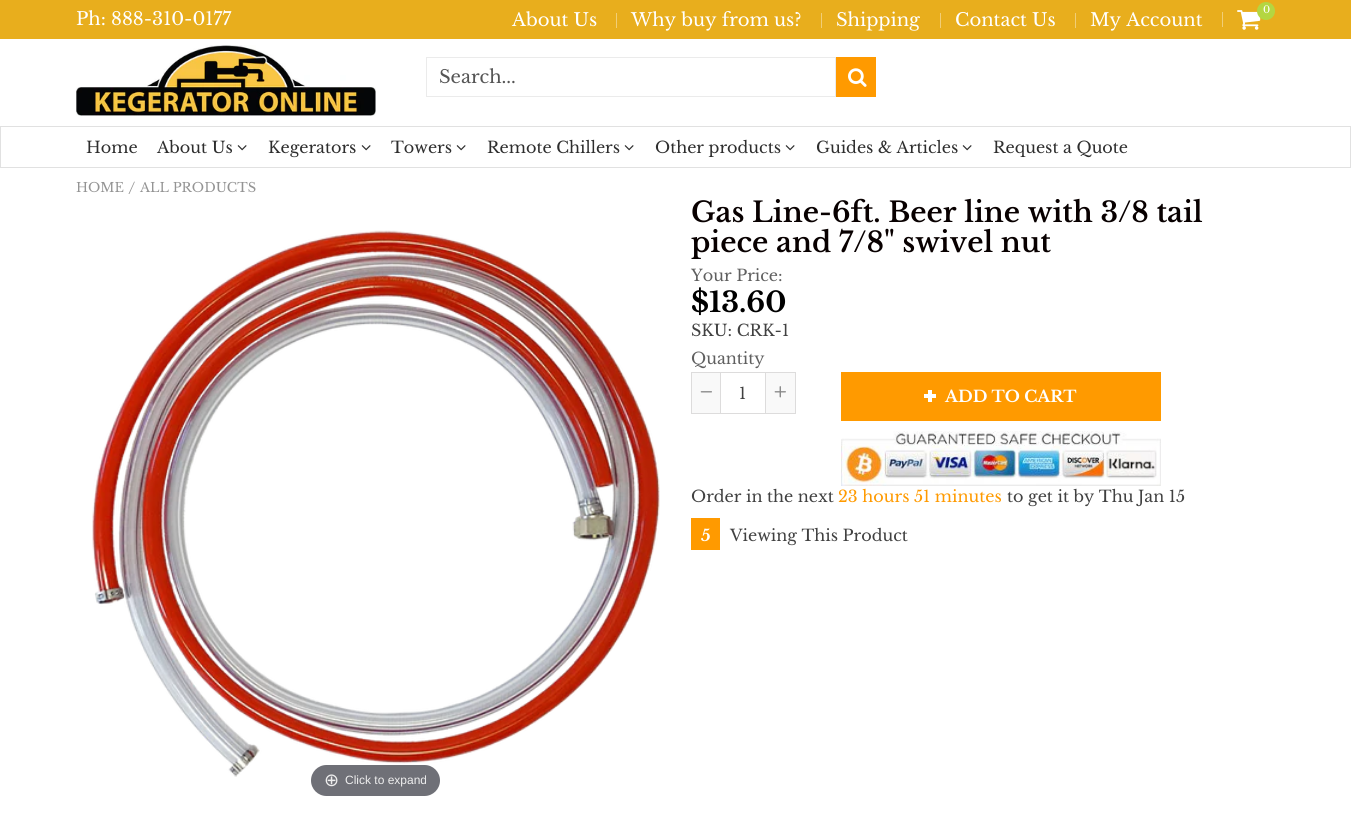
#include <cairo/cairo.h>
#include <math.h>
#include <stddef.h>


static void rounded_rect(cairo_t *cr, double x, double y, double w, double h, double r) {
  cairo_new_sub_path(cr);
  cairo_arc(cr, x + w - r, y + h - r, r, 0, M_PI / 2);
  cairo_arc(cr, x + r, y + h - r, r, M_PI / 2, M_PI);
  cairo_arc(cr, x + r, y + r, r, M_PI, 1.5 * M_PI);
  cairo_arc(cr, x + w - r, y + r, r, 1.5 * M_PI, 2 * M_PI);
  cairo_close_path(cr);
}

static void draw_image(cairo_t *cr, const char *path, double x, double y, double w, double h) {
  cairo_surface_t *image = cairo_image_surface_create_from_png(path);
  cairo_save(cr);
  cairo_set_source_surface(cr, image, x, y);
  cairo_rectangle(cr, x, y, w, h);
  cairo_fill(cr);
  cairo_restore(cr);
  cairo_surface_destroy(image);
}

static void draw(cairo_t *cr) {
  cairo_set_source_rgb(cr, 1, 1, 1);
  cairo_paint(cr);
  cairo_set_source_rgb(cr, 232 / 255.0, 174 / 255.0, 29 / 255.0);
  cairo_rectangle(cr, 0, 0, 1351, 39);
  cairo_fill(cr);
  cairo_set_source_rgb(cr, 241 / 255.0, 206 / 255.0, 119 / 255.0);
  cairo_rectangle(cr, 1222, 12, 1, 15);
  cairo_fill(cr);
  draw_image(cr, "images/1.png", 1237, 10, 24, 20);
  cairo_set_source_rgb(cr, 180 / 255.0, 214 / 255.0, 65 / 255.0);
  cairo_arc(cr, 1266, 11, 9, 0, 2 * M_PI);
  cairo_fill(cr);
  cairo_set_source_rgb(cr, 241 / 255.0, 206 / 255.0, 119 / 255.0);
  cairo_rectangle(cr, 616, 13, 1, 15);
  cairo_fill(cr);
  cairo_rectangle(cr, 821, 13, 1, 15);
  cairo_fill(cr);
  cairo_rectangle(cr, 940, 13, 1, 15);
  cairo_fill(cr);
  cairo_rectangle(cr, 1075, 13, 1, 15);
  cairo_fill(cr);
  draw_image(cr, "images/2.png", 76, 45, 300, 71);
  cairo_rectangle(cr, 426.5, 57.5, 409, 39);
  cairo_set_source_rgb(cr, 235 / 255.0, 235 / 255.0, 235 / 255.0);
  cairo_set_line_width(cr, 1);
  cairo_stroke(cr);
  cairo_set_source_rgb(cr, 1, 154 / 255.0, 0);
  cairo_rectangle(cr, 836, 57, 40, 40);
  cairo_fill(cr);
  draw_image(cr, "images/3.png", 848, 68, 19, 19);
  cairo_rectangle(cr, 0.5, 126.5, 1350, 41);
  cairo_set_source_rgb(cr, 225 / 255.0, 225 / 255.0, 225 / 255.0);
  cairo_stroke(cr);
  draw_image(cr, "images/4.png", 237, 145, 10, 6);
  draw_image(cr, "images/4.png", 361, 145, 10, 6);
  draw_image(cr, "images/4.png", 456, 145, 10, 6);
  draw_image(cr, "images/4.png", 624, 145, 10, 6);
  draw_image(cr, "images/4.png", 785, 145, 10, 6);
  draw_image(cr, "images/4.png", 962, 145, 10, 6);
  cairo_rectangle(cr, 691.5, 372.5, 104, 41);
  cairo_set_source_rgb(cr, 221 / 255.0, 220 / 255.0, 220 / 255.0);
  cairo_stroke(cr);
  cairo_set_source_rgb(cr, 249 / 255.0, 249 / 255.0, 249 / 255.0);
  cairo_rectangle(cr, 692, 373, 28, 40);
  cairo_fill(cr);
  cairo_set_source_rgb(cr, 221 / 255.0, 220 / 255.0, 220 / 255.0);
  cairo_rectangle(cr, 720, 373, 1, 40);
  cairo_fill(cr);
  draw_image(cr, "images/5.png", 700, 391, 12, 2);
  cairo_set_source_rgb(cr, 249 / 255.0, 249 / 255.0, 249 / 255.0);
  cairo_rectangle(cr, 766, 373, 29, 40);
  cairo_fill(cr);
  cairo_set_source_rgb(cr, 221 / 255.0, 220 / 255.0, 220 / 255.0);
  cairo_rectangle(cr, 765, 373, 1, 40);
  cairo_fill(cr);
  draw_image(cr, "images/6.png", 774, 386, 12, 12);
  cairo_set_source_rgb(cr, 1, 154 / 255.0, 0);
  cairo_rectangle(cr, 841, 372, 320, 49);
  cairo_fill(cr);
  draw_image(cr, "images/7.png", 924, 390, 12, 12);
  draw_image(cr, "images/8.png", 841, 431, 320, 55);
  cairo_rectangle(cr, 691, 518, 29, 32);
  cairo_fill(cr);
  draw_image(cr, "images/9.png", 92, 230, 568, 547);
  cairo_set_source_rgb(cr, 111 / 255.0, 112 / 255.0, 119 / 255.0);
  rounded_rect(cr, 311, 765, 129, 31, 15.5);
  cairo_fill(cr);
  cairo_select_font_face(cr, "Libre Baskerville", CAIRO_FONT_SLANT_NORMAL, CAIRO_FONT_WEIGHT_NORMAL);
  cairo_set_font_size(cr, 18);
  cairo_set_source_rgb(cr, 1, 1, 1);
  cairo_move_to(cr, 76, 25);
  cairo_show_text(cr, "Ph: 888-310-0177");
  cairo_set_font_size(cr, 10);
  cairo_move_to(cr, 1263, 13);
  cairo_show_text(cr, "0");
  cairo_set_font_size(cr, 18);
  cairo_move_to(cr, 512, 26);
  cairo_show_text(cr, "About Us");
  cairo_move_to(cr, 631, 26);
  cairo_show_text(cr, "Why buy from us?");
  cairo_move_to(cr, 836, 26);
  cairo_show_text(cr, "Shipping");
  cairo_move_to(cr, 955, 26);
  cairo_show_text(cr, "Contact Us");
  cairo_move_to(cr, 1090, 26);
  cairo_show_text(cr, "My Account");
  cairo_set_source_rgb(cr, 85 / 255.0, 85 / 255.0, 85 / 255.0);
  cairo_move_to(cr, 439, 83);
  cairo_show_text(cr, "Search...");
  cairo_set_font_size(cr, 16);
  cairo_set_source_rgb(cr, 46 / 255.0, 46 / 255.0, 46 / 255.0);
  cairo_move_to(cr, 86, 153);
  cairo_show_text(cr, "Home");
  cairo_move_to(cr, 157, 153);
  cairo_show_text(cr, "About Us");
  cairo_move_to(cr, 268, 153);
  cairo_show_text(cr, "Kegerators");
  cairo_move_to(cr, 391, 153);
  cairo_show_text(cr, "Towers");
  cairo_move_to(cr, 487, 153);
  cairo_show_text(cr, "Remote Chillers");
  cairo_move_to(cr, 655, 153);
  cairo_show_text(cr, "Other products");
  cairo_move_to(cr, 816, 153);
  cairo_show_text(cr, "Guides & Articles");
  cairo_move_to(cr, 993, 153);
  cairo_show_text(cr, "Request a Quote");
  cairo_set_font_size(cr, 13);
  cairo_set_source_rgb(cr, 148 / 255.0, 148 / 255.0, 148 / 255.0);
  cairo_move_to(cr, 76, 192);
  cairo_show_text(cr, "HOME");
  cairo_set_font_size(cr, 16);
  cairo_move_to(cr, 128, 194);
  cairo_show_text(cr, "/");
  cairo_set_font_size(cr, 13);
  cairo_move_to(cr, 140, 192);
  cairo_show_text(cr, "ALL PRODUCTS");
  cairo_select_font_face(cr, "Libre Baskerville SemiBold", CAIRO_FONT_SLANT_NORMAL, CAIRO_FONT_WEIGHT_NORMAL);
  cairo_set_font_size(cr, 28);
  cairo_set_source_rgb(cr, 8 / 255.0, 0, 0);
  cairo_move_to(cr, 691, 222);
  cairo_show_text(cr, "Gas Line-6ft. Beer line with 3/8 tail");
  cairo_move_to(cr, 691, 252);
  cairo_show_text(cr, "piece and 7/8\" swivel nut");
  cairo_select_font_face(cr, "Libre Baskerville", CAIRO_FONT_SLANT_NORMAL, CAIRO_FONT_WEIGHT_NORMAL);
  cairo_set_font_size(cr, 16);
  cairo_set_source_rgb(cr, 96 / 255.0, 96 / 255.0, 96 / 255.0);
  cairo_move_to(cr, 691, 281);
  cairo_show_text(cr, "Your Price:");
  cairo_select_font_face(cr, "Libre Baskerville", CAIRO_FONT_SLANT_NORMAL, CAIRO_FONT_WEIGHT_BOLD);
  cairo_set_font_size(cr, 28);
  cairo_set_source_rgb(cr, 0, 0, 0);
  cairo_move_to(cr, 691, 312);
  cairo_show_text(cr, "$13.60");
  cairo_select_font_face(cr, "Libre Baskerville", CAIRO_FONT_SLANT_NORMAL, CAIRO_FONT_WEIGHT_NORMAL);
  cairo_set_font_size(cr, 16);
  cairo_set_source_rgb(cr, 65 / 255.0, 65 / 255.0, 65 / 255.0);
  cairo_move_to(cr, 691, 336);
  cairo_show_text(cr, "SKU: CRK-1");
  cairo_set_source_rgb(cr, 96 / 255.0, 96 / 255.0, 96 / 255.0);
  cairo_move_to(cr, 691, 364);
  cairo_show_text(cr, "Quantity");
  cairo_set_source_rgb(cr, 65 / 255.0, 65 / 255.0, 65 / 255.0);
  cairo_move_to(cr, 739, 399);
  cairo_show_text(cr, "1");
  cairo_select_font_face(cr, "Libre Baskerville", CAIRO_FONT_SLANT_NORMAL, CAIRO_FONT_WEIGHT_BOLD);
  cairo_set_source_rgb(cr, 1, 1, 1);
  cairo_move_to(cr, 945, 402);
  cairo_show_text(cr, "ADD TO CART");
  cairo_select_font_face(cr, "Libre Baskerville", CAIRO_FONT_SLANT_NORMAL, CAIRO_FONT_WEIGHT_NORMAL);
  cairo_set_source_rgb(cr, 65 / 255.0, 65 / 255.0, 65 / 255.0);
  cairo_move_to(cr, 691, 502);
  cairo_show_text(cr, "Order in the next");
  cairo_set_source_rgb(cr, 1, 154 / 255.0, 0);
  cairo_move_to(cr, 838, 502);
  cairo_show_text(cr, "23 hours 51 minutes");
  cairo_set_source_rgb(cr, 65 / 255.0, 65 / 255.0, 65 / 255.0);
  cairo_move_to(cr, 1007, 502);
  cairo_show_text(cr, "to get it by Thu Jan 15");
  cairo_select_font_face(cr, "Libre Baskerville", CAIRO_FONT_SLANT_NORMAL, CAIRO_FONT_WEIGHT_BOLD);
  cairo_set_source_rgb(cr, 1, 1, 1);
  cairo_move_to(cr, 701, 541);
  cairo_show_text(cr, "5");
  cairo_select_font_face(cr, "Libre Baskerville", CAIRO_FONT_SLANT_NORMAL, CAIRO_FONT_WEIGHT_NORMAL);
  cairo_set_source_rgb(cr, 65 / 255.0, 65 / 255.0, 65 / 255.0);
  cairo_move_to(cr, 730, 541);
  cairo_show_text(cr, "Viewing This Product");
  cairo_select_font_face(cr, "DejaVu Sans", CAIRO_FONT_SLANT_NORMAL, CAIRO_FONT_WEIGHT_NORMAL);
  cairo_set_font_size(cr, 18);
  cairo_set_source_rgb(cr, 238 / 255.0, 238 / 255.0, 238 / 255.0);
  cairo_move_to(cr, 324, 786);
  cairo_show_text(cr, "⊕");
  cairo_select_font_face(cr, "Liberation Sans", CAIRO_FONT_SLANT_NORMAL, CAIRO_FONT_WEIGHT_NORMAL);
  cairo_set_font_size(cr, 12);
  cairo_move_to(cr, 345, 784);
  cairo_show_text(cr, "Click to expand");
}

int main(void) {
  cairo_surface_t *surface = cairo_image_surface_create(CAIRO_FORMAT_RGB24, 1351, 837);
  cairo_t *cr = cairo_create(surface);
  cairo_font_options_t *options = cairo_font_options_create();
  cairo_font_options_set_hint_metrics(options, CAIRO_HINT_METRICS_OFF);
  cairo_font_options_set_hint_style(options, CAIRO_HINT_STYLE_NONE);
  cairo_set_font_options(cr, options);
  cairo_set_miter_limit(cr, 4);
  draw(cr);
  cairo_surface_write_to_png(surface, "out.png");
  cairo_font_options_destroy(options);
  cairo_destroy(cr);
  cairo_surface_destroy(surface);
  return 0;
}
